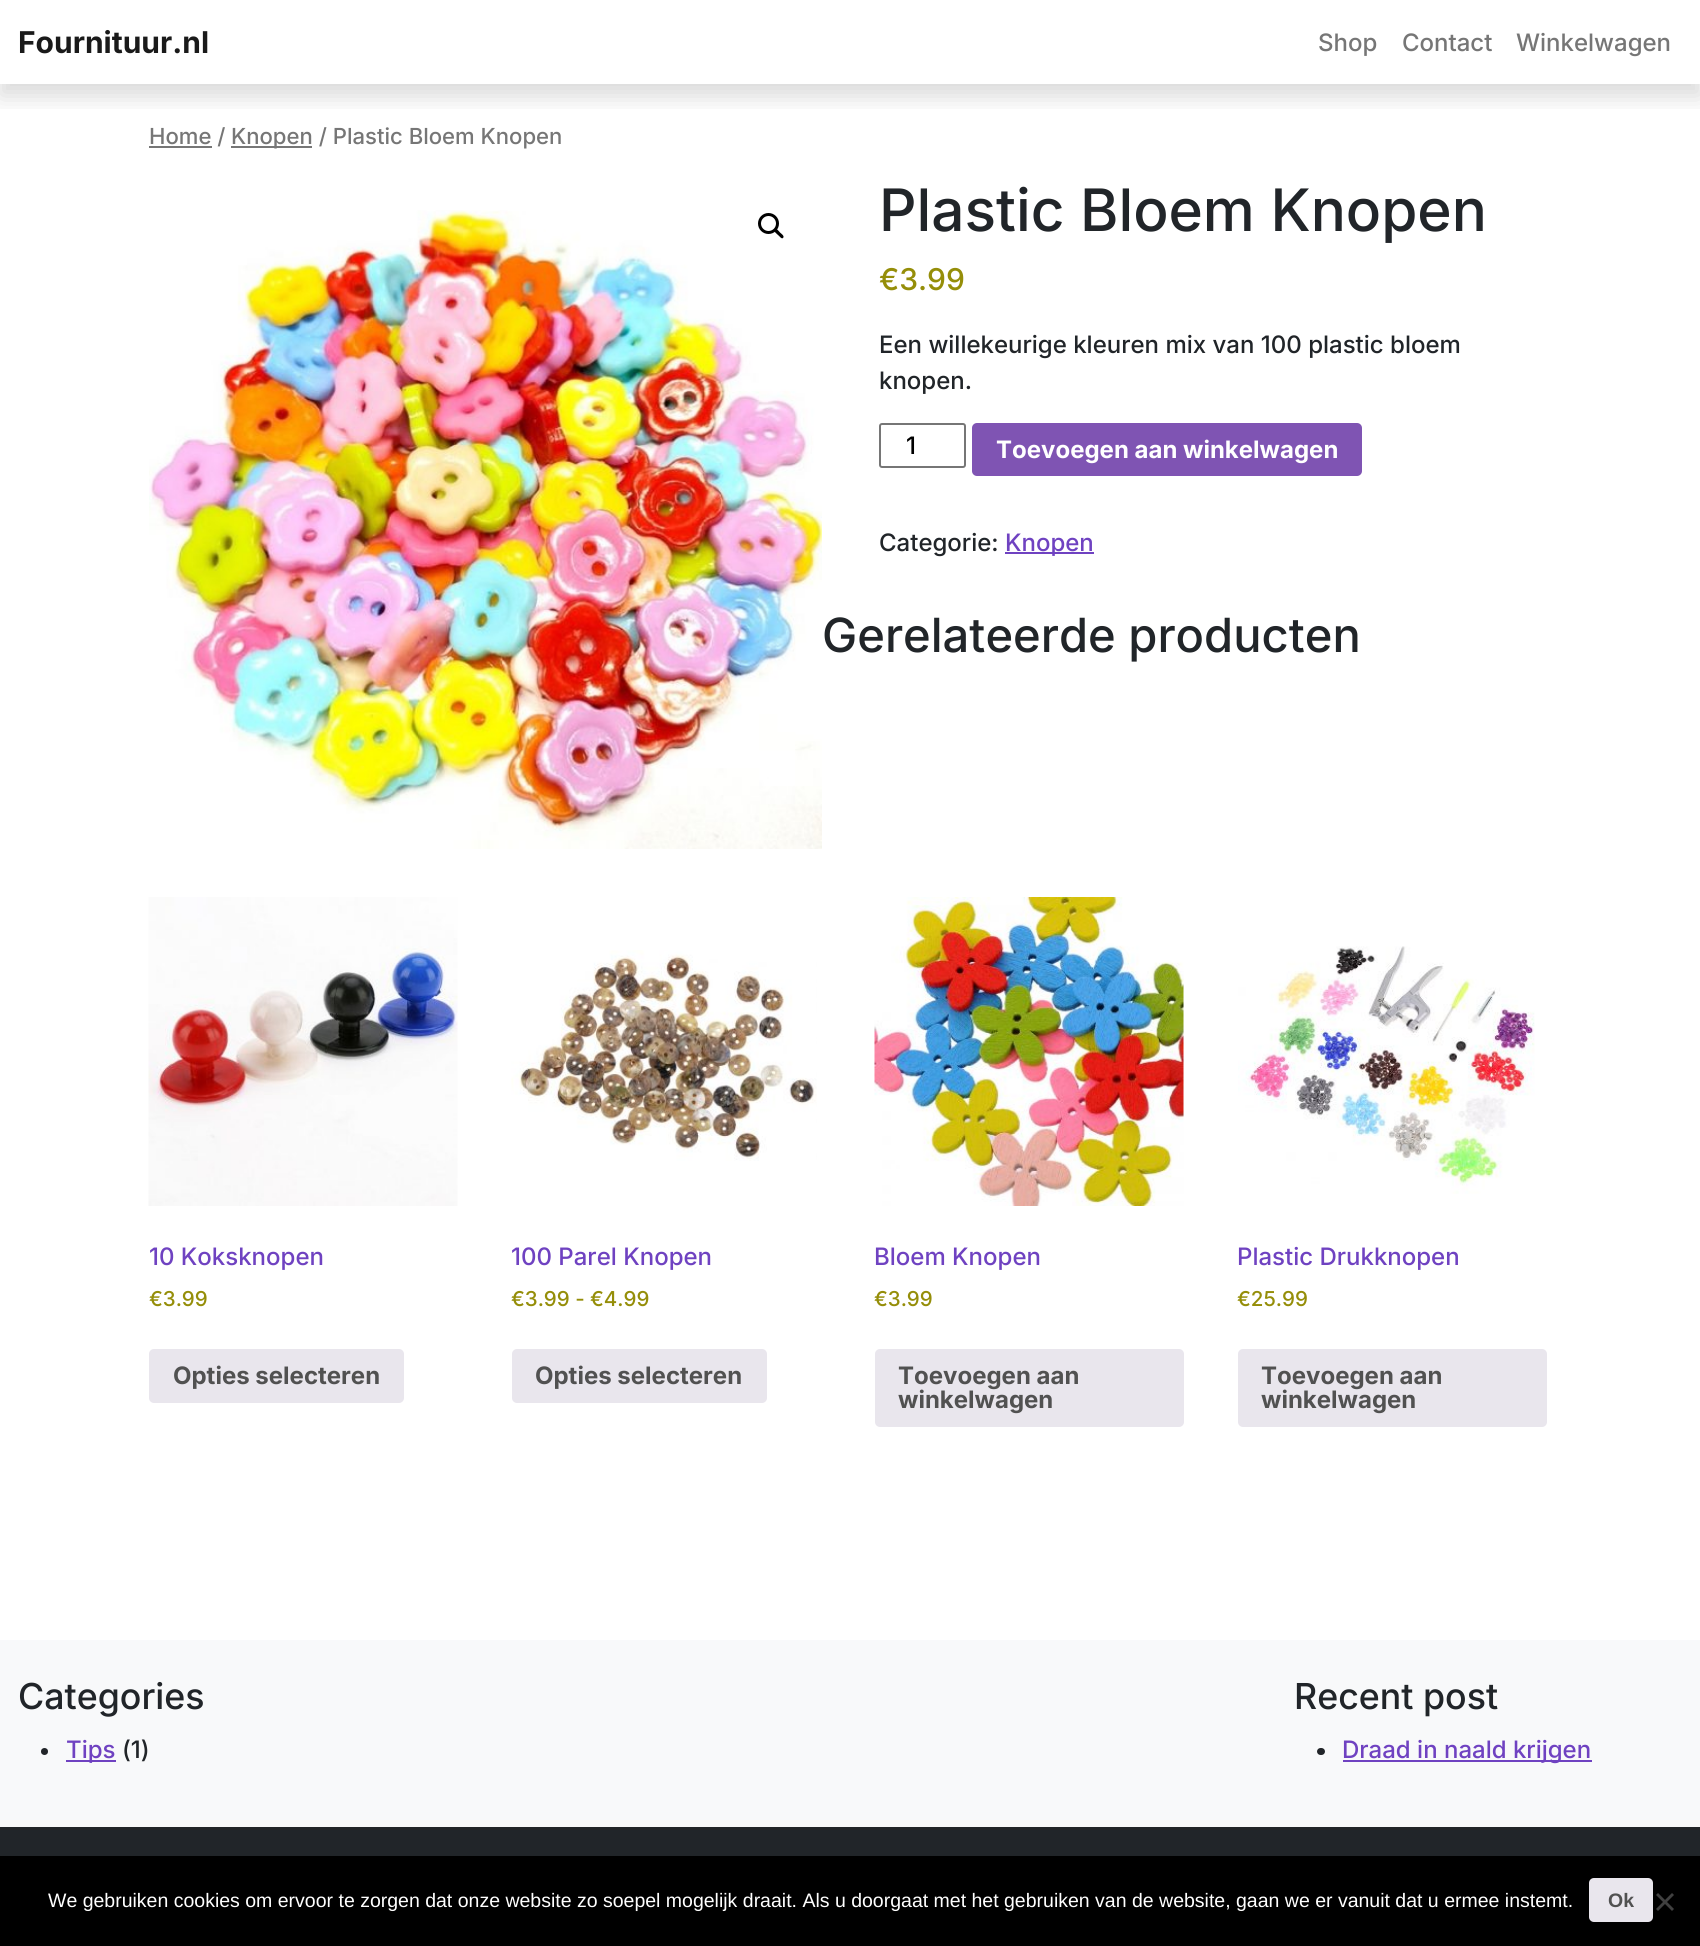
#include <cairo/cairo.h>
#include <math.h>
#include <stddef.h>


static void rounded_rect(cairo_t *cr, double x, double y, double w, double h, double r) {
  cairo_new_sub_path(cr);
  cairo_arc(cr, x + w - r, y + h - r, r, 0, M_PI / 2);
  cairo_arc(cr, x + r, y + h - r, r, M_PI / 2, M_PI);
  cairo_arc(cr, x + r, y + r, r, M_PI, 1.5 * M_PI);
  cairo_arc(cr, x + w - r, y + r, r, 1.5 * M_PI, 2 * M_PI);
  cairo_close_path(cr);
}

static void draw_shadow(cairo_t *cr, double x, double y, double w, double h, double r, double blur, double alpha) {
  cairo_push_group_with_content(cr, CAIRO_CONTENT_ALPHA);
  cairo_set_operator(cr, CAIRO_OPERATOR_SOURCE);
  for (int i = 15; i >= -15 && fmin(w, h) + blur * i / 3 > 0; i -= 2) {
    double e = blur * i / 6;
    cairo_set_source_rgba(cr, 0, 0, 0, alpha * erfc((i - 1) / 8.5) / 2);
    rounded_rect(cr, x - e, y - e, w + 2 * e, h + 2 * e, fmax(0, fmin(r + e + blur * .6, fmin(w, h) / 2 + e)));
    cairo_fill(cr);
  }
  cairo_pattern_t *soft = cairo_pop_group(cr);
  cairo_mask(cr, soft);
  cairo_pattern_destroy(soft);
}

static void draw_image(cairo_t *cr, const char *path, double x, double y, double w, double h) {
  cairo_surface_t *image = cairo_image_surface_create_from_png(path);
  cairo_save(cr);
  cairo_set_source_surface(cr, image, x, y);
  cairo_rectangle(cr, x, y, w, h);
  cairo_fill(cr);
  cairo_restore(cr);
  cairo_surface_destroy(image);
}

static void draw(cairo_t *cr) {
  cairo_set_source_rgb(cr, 1, 1, 1);
  cairo_paint(cr);
  cairo_save(cr);
  cairo_rectangle(cr, 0, 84, 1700, 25);
  cairo_clip(cr);
  cairo_set_source_rgb(cr, 0, 0, 0);
  draw_shadow(cr, 0, 12, 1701, 84, 0, 12, 0.15);
  cairo_restore(cr);
  cairo_set_source_rgb(cr, 118 / 255.0, 118 / 255.0, 118 / 255.0);
  cairo_rectangle(cr, 149, 146, 63, 2);
  cairo_fill(cr);
  cairo_rectangle(cr, 231, 146, 81, 2);
  cairo_fill(cr);
  draw_image(cr, "images/1.png", 149, 210, 673, 639);
  cairo_arc(cr, 768.5, 223.5, 9, 0, 2 * M_PI);
  cairo_set_source_rgb(cr, 0, 0, 0);
  cairo_set_line_width(cr, 3);
  cairo_stroke(cr);
  cairo_new_path(cr);
  cairo_move_to(cr, 774.5, 229.5);
  cairo_curve_to(cr, 776.5, 227.5, 779, 231.5, 780, 232.5);
  cairo_curve_to(cr, 781, 233.5, 785, 236, 783, 238);
  cairo_curve_to(cr, 781.5, 239.5, 779, 235.5, 778, 235);
  cairo_curve_to(cr, 777, 234, 773, 231, 774.5, 229.5);
  cairo_close_path(cr);
  cairo_fill(cr);
  rounded_rect(cr, 880, 424, 85, 43, 2);
  cairo_set_source_rgb(cr, 118 / 255.0, 118 / 255.0, 118 / 255.0);
  cairo_set_line_width(cr, 2);
  cairo_stroke(cr);
  cairo_set_source_rgb(cr, 127 / 255.0, 84 / 255.0, 179 / 255.0);
  rounded_rect(cr, 972, 423, 390, 53, 5);
  cairo_fill(cr);
  cairo_set_source_rgb(cr, 111 / 255.0, 66 / 255.0, 193 / 255.0);
  cairo_rectangle(cr, 1005, 552, 89, 2);
  cairo_fill(cr);
  draw_image(cr, "images/2.png", 148, 897, 310, 309);
  cairo_set_source_rgb(cr, 233 / 255.0, 230 / 255.0, 237 / 255.0);
  rounded_rect(cr, 149, 1349, 255, 54, 5);
  cairo_fill(cr);
  draw_image(cr, "images/3.png", 511, 950, 306, 211);
  rounded_rect(cr, 512, 1349, 255, 54, 5);
  cairo_fill(cr);
  draw_image(cr, "images/4.png", 874, 897, 310, 309);
  rounded_rect(cr, 875, 1349, 309, 78, 5);
  cairo_fill(cr);
  draw_image(cr, "images/5.png", 1238, 946, 297, 248);
  rounded_rect(cr, 1238, 1349, 309, 78, 5);
  cairo_fill(cr);
  cairo_set_source_rgb(cr, 248 / 255.0, 249 / 255.0, 250 / 255.0);
  cairo_rectangle(cr, 0, 1640, 1700, 187);
  cairo_fill(cr);
  cairo_set_source_rgb(cr, 33 / 255.0, 37 / 255.0, 41 / 255.0);
  cairo_arc(cr, 44.5, 1751.5, 3.5, 0, 2 * M_PI);
  cairo_fill(cr);
  cairo_set_source_rgb(cr, 111 / 255.0, 66 / 255.0, 193 / 255.0);
  cairo_rectangle(cr, 66, 1760, 50, 2);
  cairo_fill(cr);
  cairo_set_source_rgb(cr, 33 / 255.0, 37 / 255.0, 41 / 255.0);
  rounded_rect(cr, 1317, 1748, 8, 7, 3.5);
  cairo_fill(cr);
  cairo_set_source_rgb(cr, 111 / 255.0, 66 / 255.0, 193 / 255.0);
  cairo_rectangle(cr, 1343, 1760, 249, 2);
  cairo_fill(cr);
  cairo_set_source_rgb(cr, 33 / 255.0, 37 / 255.0, 41 / 255.0);
  cairo_rectangle(cr, 0, 1827, 1700, 29);
  cairo_fill(cr);
  cairo_set_source_rgb(cr, 0, 0, 0);
  cairo_rectangle(cr, 0, 1856, 1700, 90);
  cairo_fill(cr);
  cairo_set_source_rgb(cr, 233 / 255.0, 230 / 255.0, 237 / 255.0);
  rounded_rect(cr, 1589, 1878, 64, 44, 5);
  cairo_fill(cr);
  cairo_set_source_rgb(cr, 64 / 255.0, 64 / 255.0, 64 / 255.0);
  cairo_new_path(cr);
  cairo_move_to(cr, 1672, 1893);
  cairo_line_to(cr, 1674, 1895);
  cairo_line_to(cr, 1658, 1911);
  cairo_line_to(cr, 1656, 1909);
  cairo_close_path(cr);
  cairo_fill(cr);
  cairo_new_path(cr);
  cairo_move_to(cr, 1656, 1895);
  cairo_line_to(cr, 1658, 1893);
  cairo_line_to(cr, 1674, 1909);
  cairo_line_to(cr, 1672, 1911);
  cairo_close_path(cr);
  cairo_fill(cr);
  cairo_select_font_face(cr, "Inter", CAIRO_FONT_SLANT_NORMAL, CAIRO_FONT_WEIGHT_BOLD);
  cairo_set_font_size(cr, 30);
  cairo_set_source_rgb(cr, 26 / 255.0, 26 / 255.0, 26 / 255.0);
  cairo_move_to(cr, 18, 53);
  cairo_show_text(cr, "Fournituur.nl");
  cairo_select_font_face(cr, "Inter Medium", CAIRO_FONT_SLANT_NORMAL, CAIRO_FONT_WEIGHT_NORMAL);
  cairo_set_font_size(cr, 24);
  cairo_set_source_rgb(cr, 118 / 255.0, 118 / 255.0, 118 / 255.0);
  cairo_move_to(cr, 1318, 51);
  cairo_show_text(cr, "Shop");
  cairo_move_to(cr, 1402, 51);
  cairo_show_text(cr, "Contact");
  cairo_move_to(cr, 1516, 51);
  cairo_show_text(cr, "Winkelwagen");
  cairo_set_font_size(cr, 22.1);
  cairo_move_to(cr, 149, 144);
  cairo_show_text(cr, "Home /");
  cairo_move_to(cr, 231, 144);
  cairo_show_text(cr, "Knopen / Plastic Bloem Knopen");
  cairo_set_font_size(cr, 58.5);
  cairo_set_source_rgb(cr, 33 / 255.0, 37 / 255.0, 41 / 255.0);
  cairo_move_to(cr, 879, 231);
  cairo_show_text(cr, "Plastic Bloem Knopen");
  cairo_set_font_size(cr, 30);
  cairo_set_source_rgb(cr, 149 / 255.0, 142 / 255.0, 9 / 255.0);
  cairo_move_to(cr, 879, 290);
  cairo_show_text(cr, "€3.99");
  cairo_set_font_size(cr, 24);
  cairo_set_source_rgb(cr, 33 / 255.0, 37 / 255.0, 41 / 255.0);
  cairo_move_to(cr, 879, 353);
  cairo_show_text(cr, "Een willekeurige kleuren mix van 100 plastic bloem");
  cairo_move_to(cr, 879, 389);
  cairo_show_text(cr, "knopen.");
  cairo_set_source_rgb(cr, 0, 0, 0);
  cairo_move_to(cr, 906, 454);
  cairo_show_text(cr, "1");
  cairo_select_font_face(cr, "Inter", CAIRO_FONT_SLANT_NORMAL, CAIRO_FONT_WEIGHT_BOLD);
  cairo_set_source_rgb(cr, 1, 1, 1);
  cairo_move_to(cr, 996, 458);
  cairo_show_text(cr, "Toevoegen aan winkelwagen");
  cairo_select_font_face(cr, "Inter Medium", CAIRO_FONT_SLANT_NORMAL, CAIRO_FONT_WEIGHT_NORMAL);
  cairo_set_source_rgb(cr, 33 / 255.0, 37 / 255.0, 41 / 255.0);
  cairo_move_to(cr, 879, 551);
  cairo_show_text(cr, "Categorie:");
  cairo_set_source_rgb(cr, 111 / 255.0, 66 / 255.0, 193 / 255.0);
  cairo_move_to(cr, 1005, 551);
  cairo_show_text(cr, "Knopen");
  cairo_set_font_size(cr, 47.1);
  cairo_set_source_rgb(cr, 33 / 255.0, 37 / 255.0, 41 / 255.0);
  cairo_move_to(cr, 822, 652);
  cairo_show_text(cr, "Gerelateerde producten");
  cairo_set_font_size(cr, 24);
  cairo_set_source_rgb(cr, 111 / 255.0, 66 / 255.0, 193 / 255.0);
  cairo_move_to(cr, 149, 1265);
  cairo_show_text(cr, "10 Koksknopen");
  cairo_set_font_size(cr, 20.5);
  cairo_set_source_rgb(cr, 149 / 255.0, 142 / 255.0, 9 / 255.0);
  cairo_move_to(cr, 149, 1306);
  cairo_show_text(cr, "€3.99");
  cairo_select_font_face(cr, "Inter", CAIRO_FONT_SLANT_NORMAL, CAIRO_FONT_WEIGHT_BOLD);
  cairo_set_font_size(cr, 24);
  cairo_set_source_rgb(cr, 81 / 255.0, 81 / 255.0, 81 / 255.0);
  cairo_move_to(cr, 173, 1384);
  cairo_show_text(cr, "Opties selecteren");
  cairo_select_font_face(cr, "Inter Medium", CAIRO_FONT_SLANT_NORMAL, CAIRO_FONT_WEIGHT_NORMAL);
  cairo_set_source_rgb(cr, 111 / 255.0, 66 / 255.0, 193 / 255.0);
  cairo_move_to(cr, 511, 1265);
  cairo_show_text(cr, "100 Parel Knopen");
  cairo_set_font_size(cr, 20.5);
  cairo_set_source_rgb(cr, 149 / 255.0, 142 / 255.0, 9 / 255.0);
  cairo_move_to(cr, 511, 1306);
  cairo_show_text(cr, "€3.99 - €4.99");
  cairo_select_font_face(cr, "Inter", CAIRO_FONT_SLANT_NORMAL, CAIRO_FONT_WEIGHT_BOLD);
  cairo_set_font_size(cr, 24);
  cairo_set_source_rgb(cr, 81 / 255.0, 81 / 255.0, 81 / 255.0);
  cairo_move_to(cr, 535, 1384);
  cairo_show_text(cr, "Opties selecteren");
  cairo_select_font_face(cr, "Inter Medium", CAIRO_FONT_SLANT_NORMAL, CAIRO_FONT_WEIGHT_NORMAL);
  cairo_set_source_rgb(cr, 111 / 255.0, 66 / 255.0, 193 / 255.0);
  cairo_move_to(cr, 874, 1265);
  cairo_show_text(cr, "Bloem Knopen");
  cairo_set_font_size(cr, 20.5);
  cairo_set_source_rgb(cr, 149 / 255.0, 142 / 255.0, 9 / 255.0);
  cairo_move_to(cr, 874, 1306);
  cairo_show_text(cr, "€3.99");
  cairo_select_font_face(cr, "Inter", CAIRO_FONT_SLANT_NORMAL, CAIRO_FONT_WEIGHT_BOLD);
  cairo_set_font_size(cr, 24);
  cairo_set_source_rgb(cr, 81 / 255.0, 81 / 255.0, 81 / 255.0);
  cairo_move_to(cr, 898, 1384);
  cairo_show_text(cr, "Toevoegen aan");
  cairo_move_to(cr, 898, 1408);
  cairo_show_text(cr, "winkelwagen");
  cairo_select_font_face(cr, "Inter Medium", CAIRO_FONT_SLANT_NORMAL, CAIRO_FONT_WEIGHT_NORMAL);
  cairo_set_source_rgb(cr, 111 / 255.0, 66 / 255.0, 193 / 255.0);
  cairo_move_to(cr, 1237, 1265);
  cairo_show_text(cr, "Plastic Drukknopen");
  cairo_set_font_size(cr, 20.5);
  cairo_set_source_rgb(cr, 149 / 255.0, 142 / 255.0, 9 / 255.0);
  cairo_move_to(cr, 1237, 1306);
  cairo_show_text(cr, "€25.99");
  cairo_select_font_face(cr, "Inter", CAIRO_FONT_SLANT_NORMAL, CAIRO_FONT_WEIGHT_BOLD);
  cairo_set_font_size(cr, 24);
  cairo_set_source_rgb(cr, 81 / 255.0, 81 / 255.0, 81 / 255.0);
  cairo_move_to(cr, 1261, 1384);
  cairo_show_text(cr, "Toevoegen aan");
  cairo_move_to(cr, 1261, 1408);
  cairo_show_text(cr, "winkelwagen");
  cairo_select_font_face(cr, "Inter Medium", CAIRO_FONT_SLANT_NORMAL, CAIRO_FONT_WEIGHT_NORMAL);
  cairo_set_font_size(cr, 35.75);
  cairo_set_source_rgb(cr, 33 / 255.0, 37 / 255.0, 41 / 255.0);
  cairo_move_to(cr, 18, 1709);
  cairo_show_text(cr, "Categories");
  cairo_set_font_size(cr, 24);
  cairo_set_source_rgb(cr, 111 / 255.0, 66 / 255.0, 193 / 255.0);
  cairo_move_to(cr, 66, 1758);
  cairo_show_text(cr, "Tips");
  cairo_set_source_rgb(cr, 33 / 255.0, 37 / 255.0, 41 / 255.0);
  cairo_move_to(cr, 122, 1758);
  cairo_show_text(cr, "(1)");
  cairo_set_font_size(cr, 35.75);
  cairo_move_to(cr, 1294, 1709);
  cairo_show_text(cr, "Recent post");
  cairo_set_font_size(cr, 24);
  cairo_set_source_rgb(cr, 111 / 255.0, 66 / 255.0, 193 / 255.0);
  cairo_move_to(cr, 1342, 1758);
  cairo_show_text(cr, "Draad in naald krijgen");
  cairo_select_font_face(cr, "Liberation Sans", CAIRO_FONT_SLANT_NORMAL, CAIRO_FONT_WEIGHT_NORMAL);
  cairo_set_font_size(cr, 19.5);
  cairo_set_source_rgb(cr, 1, 1, 1);
  cairo_move_to(cr, 48, 1907);
  cairo_show_text(cr, "We gebruiken cookies om ervoor te zorgen dat onze website zo soepel mogelijk draait. Als u doorgaat met het gebruiken van de website, gaan we er vanuit dat u ermee instemt.");
  cairo_select_font_face(cr, "Liberation Sans", CAIRO_FONT_SLANT_NORMAL, CAIRO_FONT_WEIGHT_BOLD);
  cairo_set_source_rgb(cr, 81 / 255.0, 81 / 255.0, 81 / 255.0);
  cairo_move_to(cr, 1608, 1907);
  cairo_show_text(cr, "Ok");
}

int main(void) {
  cairo_surface_t *surface = cairo_image_surface_create(CAIRO_FORMAT_RGB24, 1700, 1946);
  cairo_t *cr = cairo_create(surface);
  cairo_font_options_t *options = cairo_font_options_create();
  cairo_font_options_set_hint_metrics(options, CAIRO_HINT_METRICS_OFF);
  cairo_font_options_set_hint_style(options, CAIRO_HINT_STYLE_NONE);
  cairo_set_font_options(cr, options);
  cairo_set_miter_limit(cr, 4);
  draw(cr);
  cairo_surface_write_to_png(surface, "out.png");
  cairo_font_options_destroy(options);
  cairo_destroy(cr);
  cairo_surface_destroy(surface);
  return 0;
}
